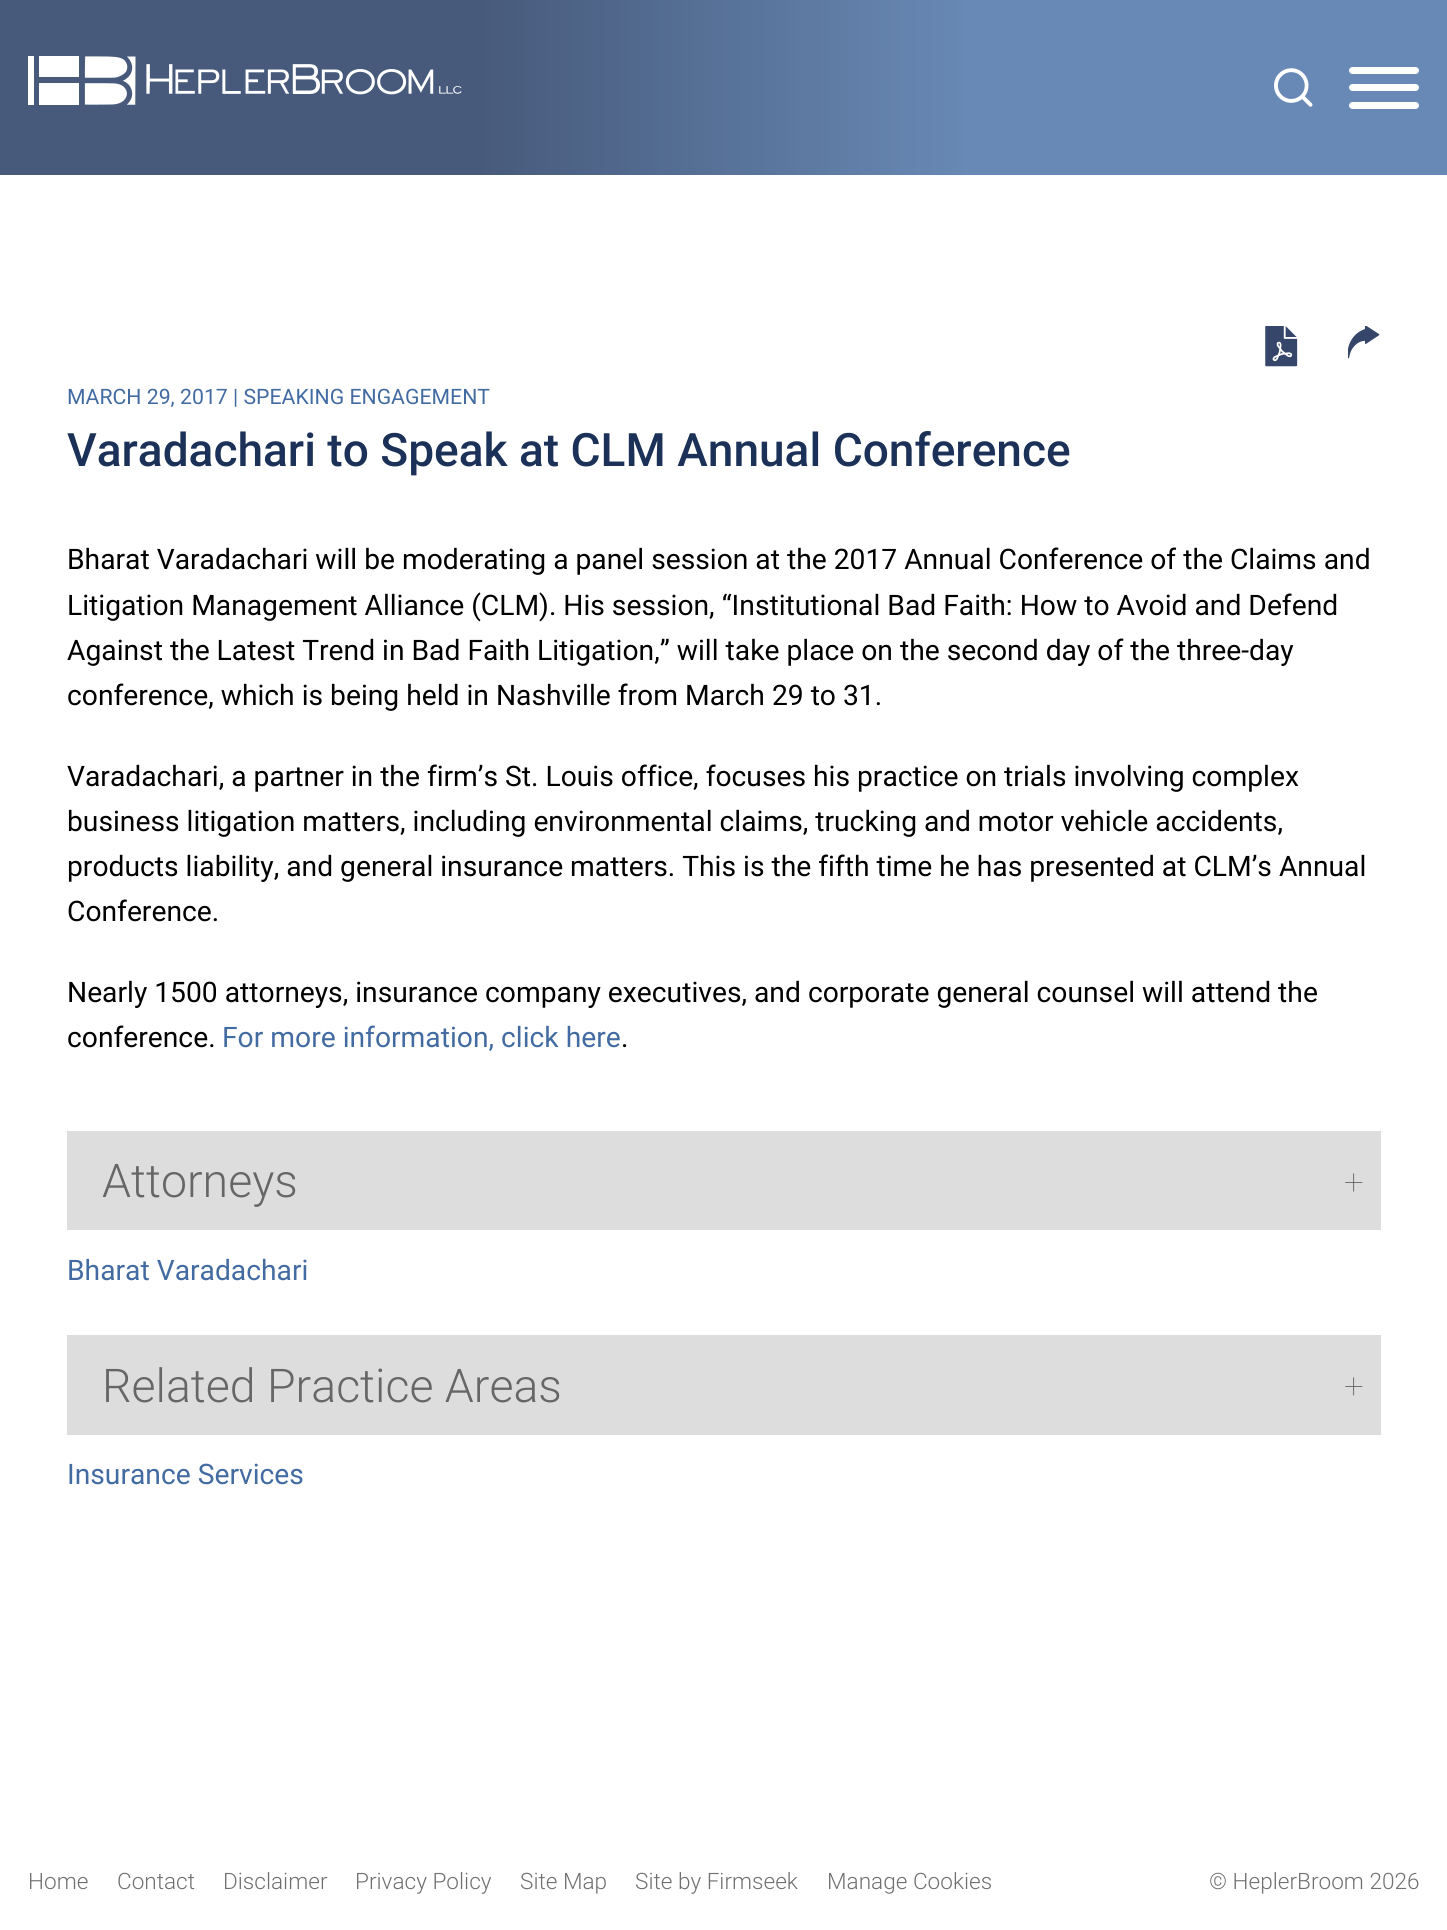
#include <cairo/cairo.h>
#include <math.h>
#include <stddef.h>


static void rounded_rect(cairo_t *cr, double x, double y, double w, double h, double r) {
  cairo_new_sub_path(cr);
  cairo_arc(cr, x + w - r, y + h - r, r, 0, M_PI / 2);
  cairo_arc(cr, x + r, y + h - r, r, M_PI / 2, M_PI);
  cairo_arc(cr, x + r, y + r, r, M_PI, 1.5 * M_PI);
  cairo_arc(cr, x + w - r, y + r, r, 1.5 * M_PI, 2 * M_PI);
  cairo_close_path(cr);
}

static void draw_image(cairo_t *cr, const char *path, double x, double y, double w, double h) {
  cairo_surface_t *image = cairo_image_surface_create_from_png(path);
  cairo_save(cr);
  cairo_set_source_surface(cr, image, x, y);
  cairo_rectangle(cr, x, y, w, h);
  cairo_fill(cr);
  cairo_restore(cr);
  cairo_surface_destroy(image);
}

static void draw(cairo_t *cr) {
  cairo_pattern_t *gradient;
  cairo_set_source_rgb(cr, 1, 1, 1);
  cairo_paint(cr);
  gradient = cairo_pattern_create_linear(0, 88, 1447, 87);
  cairo_pattern_add_color_stop_rgba(gradient, 0.33, 71 / 255.0, 90 / 255.0, 123 / 255.0, 1);
  cairo_pattern_add_color_stop_rgba(gradient, 0.67, 104 / 255.0, 137 / 255.0, 181 / 255.0, 1);
  cairo_set_source(cr, gradient);
  cairo_pattern_destroy(gradient);
  cairo_rectangle(cr, 0, 0, 1447, 175);
  cairo_fill(cr);
  draw_image(cr, "images/1.png", 28, 56, 434, 49);
  draw_image(cr, "images/2.png", 1274, 68, 39, 39);
  cairo_set_source_rgb(cr, 1, 1, 1);
  rounded_rect(cr, 1349, 67, 70, 7, 3.5);
  cairo_fill(cr);
  rounded_rect(cr, 1349, 84, 70, 7, 3.5);
  cairo_fill(cr);
  rounded_rect(cr, 1349, 102, 70, 7, 3.5);
  cairo_fill(cr);
  draw_image(cr, "images/3.png", 1265, 326, 33, 41);
  draw_image(cr, "images/4.png", 1348, 326, 32, 33);
  cairo_set_source_rgb(cr, 221 / 255.0, 221 / 255.0, 221 / 255.0);
  cairo_rectangle(cr, 67, 1131, 1314, 99);
  cairo_fill(cr);
  cairo_rectangle(cr, 67, 1335, 1314, 100);
  cairo_fill(cr);
  cairo_select_font_face(cr, "Roboto", CAIRO_FONT_SLANT_NORMAL, CAIRO_FONT_WEIGHT_NORMAL);
  cairo_set_font_size(cr, 21.25);
  cairo_set_source_rgb(cr, 66 / 255.0, 107 / 255.0, 162 / 255.0);
  cairo_move_to(cr, 67, 404);
  cairo_show_text(cr, "MARCH 29, 2017 | SPEAKING ENGAGEMENT");
  cairo_select_font_face(cr, "Roboto Medium", CAIRO_FONT_SLANT_NORMAL, CAIRO_FONT_WEIGHT_NORMAL);
  cairo_set_font_size(cr, 46.05);
  cairo_set_source_rgb(cr, 27 / 255.0, 49 / 255.0, 87 / 255.0);
  cairo_move_to(cr, 67, 466);
  cairo_show_text(cr, "Varadachari to Speak at CLM Annual Conference");
  cairo_select_font_face(cr, "Roboto", CAIRO_FONT_SLANT_NORMAL, CAIRO_FONT_WEIGHT_NORMAL);
  cairo_set_font_size(cr, 28.25);
  cairo_set_source_rgb(cr, 0, 0, 0);
  cairo_move_to(cr, 67, 569);
  cairo_show_text(cr, "Bharat Varadachari will be moderating a panel session at the 2017 Annual Conference of the Claims and");
  cairo_move_to(cr, 67, 615);
  cairo_show_text(cr, "Litigation Management Alliance (CLM). His session, “Institutional Bad Faith: How to Avoid and Defend");
  cairo_move_to(cr, 67, 660);
  cairo_show_text(cr, "Against the Latest Trend in Bad Faith Litigation,” will take place on the second day of the three-day");
  cairo_move_to(cr, 67, 705);
  cairo_show_text(cr, "conference, which is being held in Nashville from March 29 to 31.");
  cairo_move_to(cr, 67, 786);
  cairo_show_text(cr, "Varadachari, a partner in the firm’s St. Louis office, focuses his practice on trials involving complex");
  cairo_move_to(cr, 67, 831);
  cairo_show_text(cr, "business litigation matters, including environmental claims, trucking and motor vehicle accidents,");
  cairo_move_to(cr, 67, 876);
  cairo_show_text(cr, "products liability, and general insurance matters. This is the fifth time he has presented at CLM’s Annual");
  cairo_move_to(cr, 67, 921);
  cairo_show_text(cr, "Conference.");
  cairo_move_to(cr, 67, 1002);
  cairo_show_text(cr, "Nearly 1500 attorneys, insurance company executives, and corporate general counsel will attend the");
  cairo_move_to(cr, 67, 1047);
  cairo_show_text(cr, "conference.");
  cairo_set_source_rgb(cr, 66 / 255.0, 107 / 255.0, 162 / 255.0);
  cairo_move_to(cr, 222, 1047);
  cairo_show_text(cr, "For more information, click here");
  cairo_set_source_rgb(cr, 0, 0, 0);
  cairo_move_to(cr, 621, 1047);
  cairo_show_text(cr, ".");
  cairo_select_font_face(cr, "Roboto Light", CAIRO_FONT_SLANT_NORMAL, CAIRO_FONT_WEIGHT_NORMAL);
  cairo_set_font_size(cr, 46.5);
  cairo_set_source_rgb(cr, 102 / 255.0, 102 / 255.0, 102 / 255.0);
  cairo_move_to(cr, 102, 1197);
  cairo_show_text(cr, "Attorneys");
  cairo_select_font_face(cr, "Roboto Thin", CAIRO_FONT_SLANT_NORMAL, CAIRO_FONT_WEIGHT_NORMAL);
  cairo_set_font_size(cr, 35);
  cairo_move_to(cr, 1344, 1194);
  cairo_show_text(cr, "+");
  cairo_select_font_face(cr, "Roboto", CAIRO_FONT_SLANT_NORMAL, CAIRO_FONT_WEIGHT_NORMAL);
  cairo_set_font_size(cr, 28.25);
  cairo_set_source_rgb(cr, 66 / 255.0, 107 / 255.0, 162 / 255.0);
  cairo_move_to(cr, 67, 1280);
  cairo_show_text(cr, "Bharat Varadachari");
  cairo_select_font_face(cr, "Roboto Light", CAIRO_FONT_SLANT_NORMAL, CAIRO_FONT_WEIGHT_NORMAL);
  cairo_set_font_size(cr, 46.5);
  cairo_set_source_rgb(cr, 102 / 255.0, 102 / 255.0, 102 / 255.0);
  cairo_move_to(cr, 102, 1402);
  cairo_show_text(cr, "Related Practice Areas");
  cairo_select_font_face(cr, "Roboto Thin", CAIRO_FONT_SLANT_NORMAL, CAIRO_FONT_WEIGHT_NORMAL);
  cairo_set_font_size(cr, 35);
  cairo_move_to(cr, 1344, 1398);
  cairo_show_text(cr, "+");
  cairo_select_font_face(cr, "Roboto", CAIRO_FONT_SLANT_NORMAL, CAIRO_FONT_WEIGHT_NORMAL);
  cairo_set_font_size(cr, 28.25);
  cairo_set_source_rgb(cr, 66 / 255.0, 107 / 255.0, 162 / 255.0);
  cairo_move_to(cr, 67, 1484);
  cairo_show_text(cr, "Insurance Services");
  cairo_select_font_face(cr, "Roboto Light", CAIRO_FONT_SLANT_NORMAL, CAIRO_FONT_WEIGHT_NORMAL);
  cairo_set_font_size(cr, 22.6);
  cairo_set_source_rgb(cr, 112 / 255.0, 112 / 255.0, 112 / 255.0);
  cairo_move_to(cr, 28, 1889);
  cairo_show_text(cr, "Home");
  cairo_move_to(cr, 117, 1889);
  cairo_show_text(cr, "Contact");
  cairo_move_to(cr, 223, 1889);
  cairo_show_text(cr, "Disclaimer");
  cairo_move_to(cr, 355, 1889);
  cairo_show_text(cr, "Privacy Policy");
  cairo_move_to(cr, 520, 1889);
  cairo_show_text(cr, "Site Map");
  cairo_move_to(cr, 635, 1889);
  cairo_show_text(cr, "Site by Firmseek");
  cairo_move_to(cr, 827, 1889);
  cairo_show_text(cr, "Manage Cookies");
  cairo_move_to(cr, 1209, 1889);
  cairo_show_text(cr, "© HeplerBroom 2026");
}

int main(void) {
  cairo_surface_t *surface = cairo_image_surface_create(CAIRO_FORMAT_RGB24, 1447, 1930);
  cairo_t *cr = cairo_create(surface);
  cairo_font_options_t *options = cairo_font_options_create();
  cairo_font_options_set_hint_metrics(options, CAIRO_HINT_METRICS_OFF);
  cairo_font_options_set_hint_style(options, CAIRO_HINT_STYLE_NONE);
  cairo_set_font_options(cr, options);
  cairo_set_miter_limit(cr, 4);
  draw(cr);
  cairo_surface_write_to_png(surface, "out.png");
  cairo_font_options_destroy(options);
  cairo_destroy(cr);
  cairo_surface_destroy(surface);
  return 0;
}
